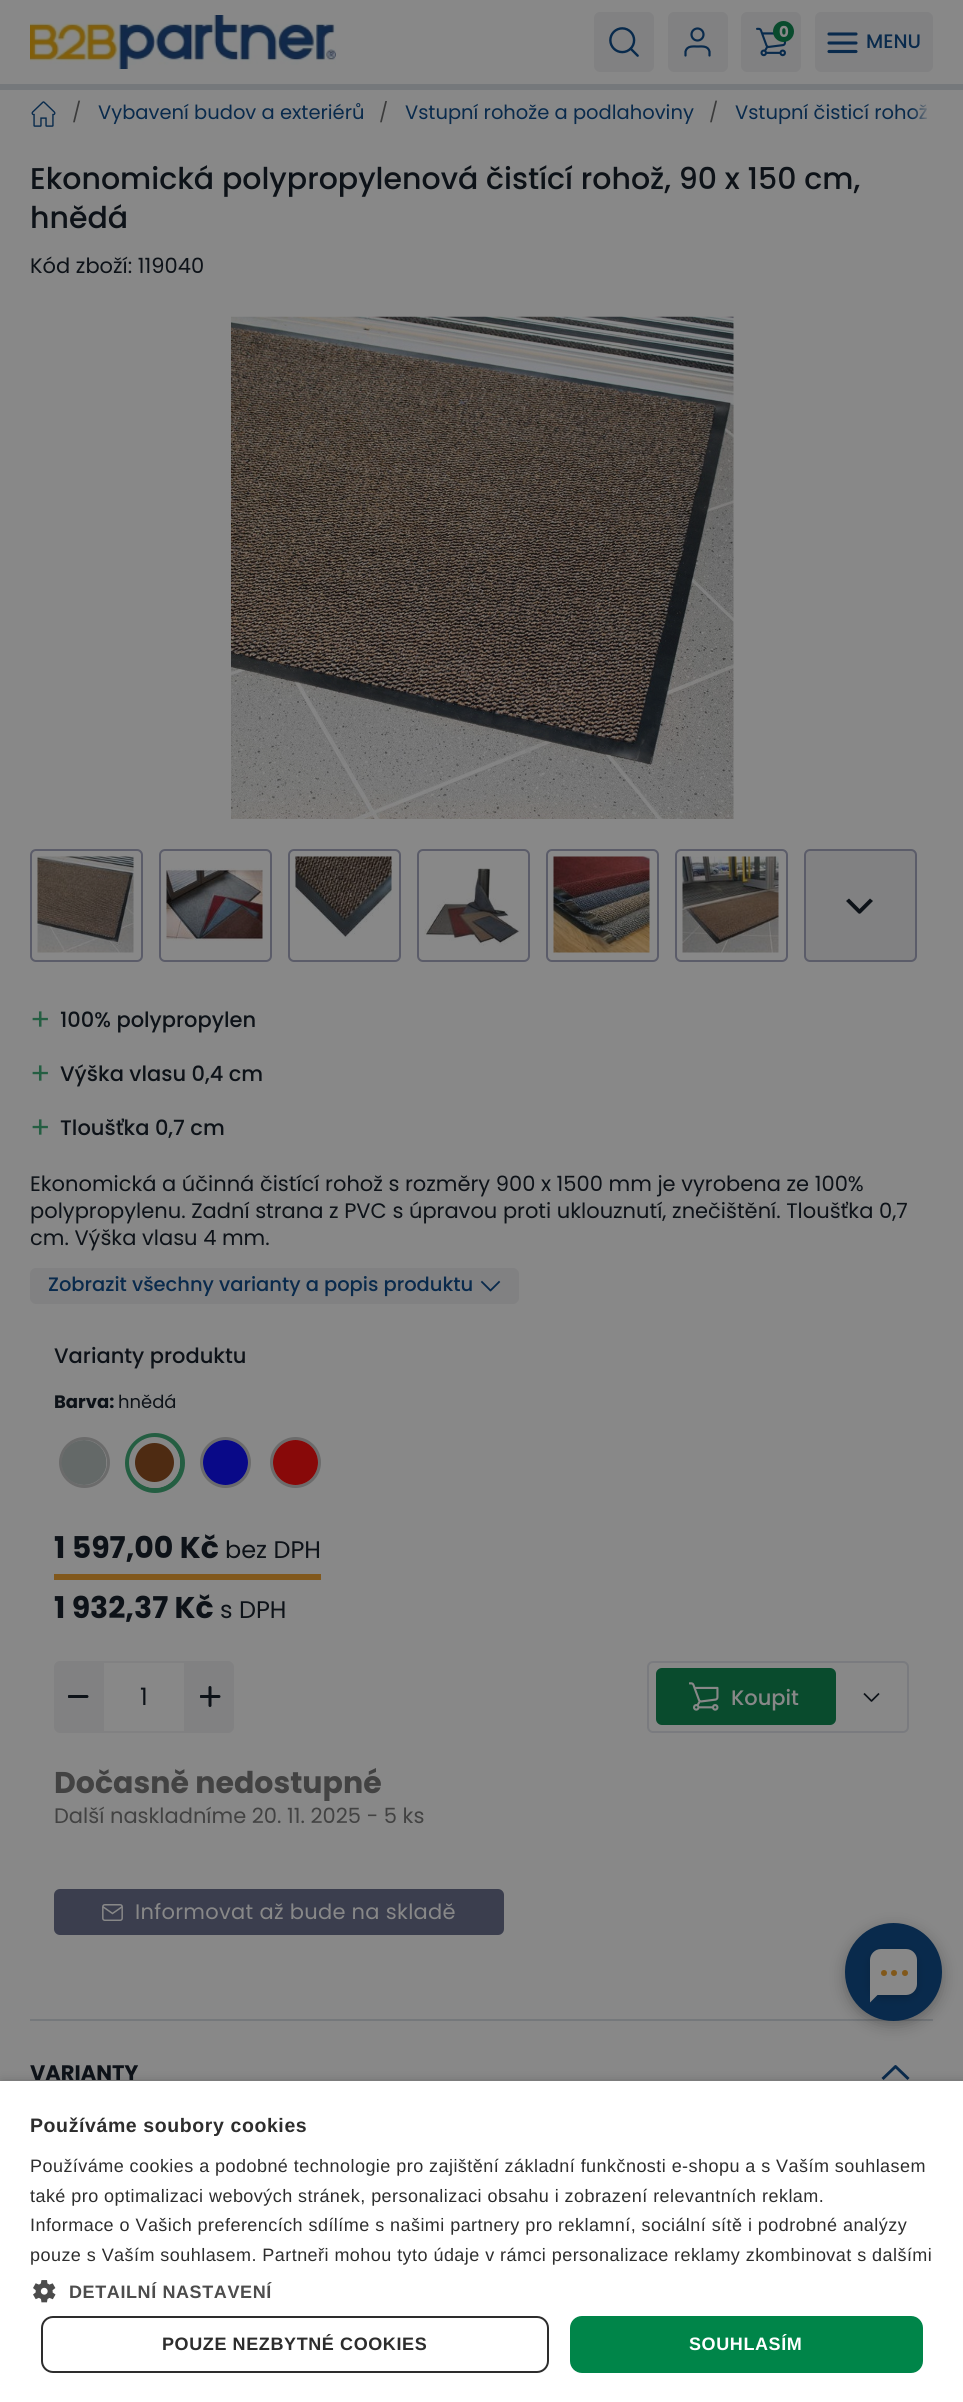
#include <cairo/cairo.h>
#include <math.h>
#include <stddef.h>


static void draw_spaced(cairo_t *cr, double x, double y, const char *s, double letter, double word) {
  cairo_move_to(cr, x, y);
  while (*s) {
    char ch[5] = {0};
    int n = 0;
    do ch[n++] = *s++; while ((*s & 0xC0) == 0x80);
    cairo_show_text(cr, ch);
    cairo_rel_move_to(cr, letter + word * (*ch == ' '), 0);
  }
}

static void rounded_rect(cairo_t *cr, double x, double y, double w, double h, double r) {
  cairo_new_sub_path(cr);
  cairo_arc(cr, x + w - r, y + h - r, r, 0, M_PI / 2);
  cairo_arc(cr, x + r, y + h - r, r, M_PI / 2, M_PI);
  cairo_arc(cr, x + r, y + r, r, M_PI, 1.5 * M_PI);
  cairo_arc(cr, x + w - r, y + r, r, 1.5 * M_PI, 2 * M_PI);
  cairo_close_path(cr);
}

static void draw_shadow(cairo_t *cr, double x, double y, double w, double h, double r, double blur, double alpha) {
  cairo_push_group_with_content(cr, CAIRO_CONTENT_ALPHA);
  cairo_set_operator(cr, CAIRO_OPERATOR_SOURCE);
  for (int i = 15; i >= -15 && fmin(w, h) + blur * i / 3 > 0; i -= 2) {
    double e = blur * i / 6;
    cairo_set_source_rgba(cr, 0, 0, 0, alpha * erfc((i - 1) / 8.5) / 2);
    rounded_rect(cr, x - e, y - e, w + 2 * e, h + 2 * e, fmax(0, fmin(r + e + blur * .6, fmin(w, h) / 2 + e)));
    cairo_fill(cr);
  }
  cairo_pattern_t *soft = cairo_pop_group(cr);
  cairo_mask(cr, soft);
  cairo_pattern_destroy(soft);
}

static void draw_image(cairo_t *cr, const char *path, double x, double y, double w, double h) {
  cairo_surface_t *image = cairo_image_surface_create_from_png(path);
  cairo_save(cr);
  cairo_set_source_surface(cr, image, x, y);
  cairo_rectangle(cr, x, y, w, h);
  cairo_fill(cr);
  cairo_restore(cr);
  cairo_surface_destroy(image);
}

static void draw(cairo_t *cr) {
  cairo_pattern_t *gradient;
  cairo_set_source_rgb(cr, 136 / 255.0, 136 / 255.0, 136 / 255.0);
  cairo_paint(cr);
  cairo_set_source_rgb(cr, 117 / 255.0, 120 / 255.0, 123 / 255.0);
  cairo_rectangle(cr, 0, 84, 963, 6);
  cairo_fill(cr);
  draw_image(cr, "images/1.png", 30, 15, 306, 54);
  cairo_set_source_rgb(cr, 129 / 255.0, 129 / 255.0, 130 / 255.0);
  rounded_rect(cr, 594, 12, 60, 60, 6);
  cairo_fill(cr);
  draw_image(cr, "images/2.png", 609, 27, 30, 30);
  rounded_rect(cr, 668, 12, 60, 60, 6);
  cairo_fill(cr);
  cairo_new_path(cr);
  cairo_move_to(cr, 709.5, 55.5);
  cairo_line_to(cr, 709.5, 51.5);
  cairo_curve_to(cr, 708, 45.5, 702, 46.5, 697.5, 46.5);
  cairo_curve_to(cr, 693, 46.5, 687, 45.5, 685.5, 51.5);
  cairo_line_to(cr, 685.5, 55.5);
  cairo_set_source_rgb(cr, 9 / 255.0, 42 / 255.0, 76 / 255.0);
  cairo_set_line_width(cr, 2.2);
  cairo_set_line_cap(cr, CAIRO_LINE_CAP_ROUND);
  cairo_set_line_join(cr, CAIRO_LINE_JOIN_ROUND);
  cairo_stroke(cr);
  cairo_arc(cr, 697.5, 34.5, 6, 0, 2 * M_PI);
  cairo_set_line_cap(cr, CAIRO_LINE_CAP_BUTT);
  cairo_set_line_join(cr, CAIRO_LINE_JOIN_MITER);
  cairo_stroke(cr);
  cairo_set_source_rgb(cr, 129 / 255.0, 129 / 255.0, 130 / 255.0);
  rounded_rect(cr, 741, 12, 60, 60, 6);
  cairo_fill(cr);
  draw_image(cr, "images/3.png", 756, 27, 30, 30);
  cairo_set_source_rgb(cr, 9 / 255.0, 75 / 255.0, 45 / 255.0);
  cairo_arc(cr, 783.5, 31.5, 10.5, 0, 2 * M_PI);
  cairo_fill(cr);
  cairo_set_source_rgb(cr, 129 / 255.0, 129 / 255.0, 130 / 255.0);
  rounded_rect(cr, 815, 12, 118, 60, 6);
  cairo_fill(cr);
  cairo_new_path(cr);
  cairo_move_to(cr, 829, 43);
  cairo_line_to(cr, 856, 43);
  cairo_move_to(cr, 829, 34);
  cairo_line_to(cr, 856, 34);
  cairo_move_to(cr, 829, 51.5);
  cairo_line_to(cr, 856, 51.5);
  cairo_set_source_rgb(cr, 9 / 255.0, 42 / 255.0, 76 / 255.0);
  cairo_set_line_width(cr, 3.1);
  cairo_set_line_cap(cr, CAIRO_LINE_CAP_ROUND);
  cairo_set_line_join(cr, CAIRO_LINE_JOIN_ROUND);
  cairo_stroke(cr);
  draw_image(cr, "images/4.png", 31, 101, 25, 26);
  draw_image(cr, "images/5.png", 231, 316, 503, 503);
  rounded_rect(cr, 31, 850, 111, 111, 5);
  cairo_set_source_rgb(cr, 91 / 255.0, 92 / 255.0, 105 / 255.0);
  cairo_set_line_width(cr, 2);
  cairo_set_line_cap(cr, CAIRO_LINE_CAP_BUTT);
  cairo_set_line_join(cr, CAIRO_LINE_JOIN_MITER);
  cairo_stroke(cr);
  draw_image(cr, "images/6.png", 37, 856, 97, 97);
  rounded_rect(cr, 160, 850, 111, 111, 5);
  cairo_stroke(cr);
  draw_image(cr, "images/7.png", 166, 868, 97, 73);
  rounded_rect(cr, 289, 850, 111, 111, 5);
  cairo_stroke(cr);
  draw_image(cr, "images/8.png", 295, 856, 97, 84);
  rounded_rect(cr, 418, 850, 111, 111, 5);
  cairo_stroke(cr);
  draw_image(cr, "images/9.png", 424, 868, 97, 78);
  rounded_rect(cr, 547, 850, 111, 111, 5);
  cairo_stroke(cr);
  draw_image(cr, "images/10.png", 553, 856, 97, 97);
  rounded_rect(cr, 676, 850, 111, 111, 5);
  cairo_stroke(cr);
  draw_image(cr, "images/11.png", 682, 856, 97, 97);
  cairo_set_source_rgb(cr, 129 / 255.0, 129 / 255.0, 130 / 255.0);
  rounded_rect(cr, 805, 850, 111, 111, 5);
  cairo_fill_preserve(cr);
  cairo_set_source_rgb(cr, 91 / 255.0, 92 / 255.0, 105 / 255.0);
  cairo_stroke(cr);
  cairo_set_source_rgb(cr, 13 / 255.0, 18 / 255.0, 24 / 255.0);
  cairo_new_path(cr);
  cairo_move_to(cr, 873, 901);
  cairo_line_to(cr, 870, 898.5);
  cairo_line_to(cr, 859.5, 909);
  cairo_line_to(cr, 849, 898.5);
  cairo_line_to(cr, 846, 901);
  cairo_line_to(cr, 858, 913);
  cairo_curve_to(cr, 859, 914, 860, 914, 861, 913);
  cairo_close_path(cr);
  cairo_fill(cr);
  cairo_set_source_rgb(cr, 129 / 255.0, 129 / 255.0, 130 / 255.0);
  rounded_rect(cr, 30, 1268, 489, 36, 6);
  cairo_fill(cr);
  cairo_new_path(cr);
  cairo_move_to(cr, 482, 1282);
  cairo_line_to(cr, 490.5, 1290.5);
  cairo_line_to(cr, 499, 1282);
  cairo_set_source_rgb(cr, 9 / 255.0, 42 / 255.0, 76 / 255.0);
  cairo_set_line_width(cr, 1.8);
  cairo_set_line_cap(cr, CAIRO_LINE_CAP_SQUARE);
  cairo_set_line_join(cr, CAIRO_LINE_JOIN_ROUND);
  cairo_stroke(cr);
  cairo_arc(cr, 84.5, 1462.5, 24, 0, 2 * M_PI);
  cairo_set_source_rgb(cr, 107 / 255.0, 107 / 255.0, 107 / 255.0);
  cairo_set_line_width(cr, 3);
  cairo_set_line_cap(cr, CAIRO_LINE_CAP_BUTT);
  cairo_set_line_join(cr, CAIRO_LINE_JOIN_MITER);
  cairo_stroke(cr);
  draw_image(cr, "images/12.png", 61, 1440, 46, 45);
  cairo_arc(cr, 155, 1463, 27.5, 0, 2 * M_PI);
  cairo_set_source_rgb(cr, 36 / 255.0, 94 / 255.0, 66 / 255.0);
  cairo_set_line_width(cr, 5);
  cairo_stroke(cr);
  cairo_arc(cr, 154.5, 1462.5, 22.5, 0, 2 * M_PI);
  cairo_set_source_rgb(cr, 134 / 255.0, 134 / 255.0, 134 / 255.0);
  cairo_set_line_width(cr, 6);
  cairo_stroke(cr);
  cairo_set_source_rgb(cr, 78 / 255.0, 43 / 255.0, 18 / 255.0);
  cairo_arc(cr, 154.5, 1462.5, 19.5, 0, 2 * M_PI);
  cairo_fill(cr);
  cairo_arc(cr, 225.5, 1462.5, 24, 0, 2 * M_PI);
  cairo_set_source_rgb(cr, 107 / 255.0, 107 / 255.0, 107 / 255.0);
  cairo_set_line_width(cr, 3);
  cairo_stroke(cr);
  cairo_set_source_rgb(cr, 9 / 255.0, 9 / 255.0, 136 / 255.0);
  cairo_arc(cr, 225.5, 1462.5, 22.5, 0, 2 * M_PI);
  cairo_fill(cr);
  cairo_arc(cr, 295.5, 1462.5, 24, 0, 2 * M_PI);
  cairo_set_source_rgb(cr, 107 / 255.0, 107 / 255.0, 107 / 255.0);
  cairo_stroke(cr);
  cairo_set_source_rgb(cr, 136 / 255.0, 9 / 255.0, 9 / 255.0);
  cairo_arc(cr, 295.5, 1462.5, 22.5, 0, 2 * M_PI);
  cairo_fill(cr);
  cairo_set_source_rgb(cr, 129 / 255.0, 88 / 255.0, 28 / 255.0);
  cairo_rectangle(cr, 54, 1574, 267, 6);
  cairo_fill(cr);
  cairo_set_source_rgb(cr, 129 / 255.0, 129 / 255.0, 130 / 255.0);
  rounded_rect(cr, 54, 1661, 180, 72, 6);
  cairo_fill(cr);
  cairo_save(cr);
  cairo_rectangle(cr, 68, 1695, 21, 3);
  cairo_clip(cr);
  cairo_new_path(cr);
  cairo_move_to(cr, 69, 1696.5);
  cairo_line_to(cr, 87, 1696.5);
  cairo_set_source_rgb(cr, 13 / 255.0, 18 / 255.0, 24 / 255.0);
  cairo_set_line_cap(cr, CAIRO_LINE_CAP_ROUND);
  cairo_stroke(cr);
  cairo_restore(cr);
  cairo_set_source_rgb(cr, 136 / 255.0, 136 / 255.0, 136 / 255.0);
  cairo_rectangle(cr, 104, 1663, 80, 68);
  cairo_fill(cr);
  cairo_save(cr);
  cairo_rectangle(cr, 200, 1686, 21, 21);
  cairo_clip(cr);
  cairo_new_path(cr);
  cairo_move_to(cr, 201, 1696.5);
  cairo_line_to(cr, 219, 1696.5);
  cairo_move_to(cr, 210, 1705.5);
  cairo_line_to(cr, 210, 1687.5);
  cairo_set_source_rgb(cr, 13 / 255.0, 18 / 255.0, 24 / 255.0);
  cairo_set_line_cap(cr, CAIRO_LINE_CAP_ROUND);
  cairo_stroke(cr);
  cairo_restore(cr);
  rounded_rect(cr, 648, 1662, 260, 70, 5);
  cairo_set_source_rgb(cr, 122 / 255.0, 123 / 255.0, 127 / 255.0);
  cairo_set_line_width(cr, 2);
  cairo_stroke(cr);
  cairo_set_source_rgb(cr, 9 / 255.0, 75 / 255.0, 45 / 255.0);
  rounded_rect(cr, 656, 1668, 180, 57, 6);
  cairo_fill(cr);
  draw_image(cr, "images/13.png", 689, 1682, 30, 29);
  cairo_new_path(cr);
  cairo_move_to(cr, 864, 1693.5);
  cairo_line_to(cr, 871.5, 1701);
  cairo_line_to(cr, 879, 1693.5);
  cairo_set_source_rgb(cr, 13 / 255.0, 18 / 255.0, 24 / 255.0);
  cairo_set_line_width(cr, 1.7);
  cairo_set_line_join(cr, CAIRO_LINE_JOIN_ROUND);
  cairo_stroke(cr);
  cairo_set_source_rgb(cr, 59 / 255.0, 62 / 255.0, 78 / 255.0);
  rounded_rect(cr, 54, 1889, 450, 46, 6);
  cairo_fill(cr);
  draw_image(cr, "images/14.png", 102, 1904, 21, 17);
  cairo_set_source_rgb(cr, 117 / 255.0, 120 / 255.0, 123 / 255.0);
  cairo_rectangle(cr, 30, 2019, 903, 2);
  cairo_fill(cr);
  cairo_new_path(cr);
  cairo_move_to(cr, 908.5, 2079);
  cairo_line_to(cr, 895.5, 2066.5);
  cairo_line_to(cr, 882.5, 2079);
  cairo_set_source_rgb(cr, 9 / 255.0, 42 / 255.0, 76 / 255.0);
  cairo_set_line_width(cr, 2.9);
  cairo_stroke(cr);
  cairo_set_source_rgb(cr, 9 / 255.0, 9 / 255.0, 9 / 255.0);
  draw_shadow(cr, 845, 1928, 97, 97, 48.5, 7.5, 0.3);
  cairo_set_source_rgb(cr, 9 / 255.0, 42 / 255.0, 76 / 255.0);
  rounded_rect(cr, 845, 1923, 97, 98, 48.5);
  cairo_fill(cr);
  cairo_set_source_rgb(cr, 9 / 255.0, 9 / 255.0, 9 / 255.0);
  draw_shadow(cr, 870, 1952, 47, 46, 11, 4, 0.2);
  cairo_set_source_rgb(cr, 136 / 255.0, 136 / 255.0, 136 / 255.0);
  cairo_new_path(cr);
  cairo_move_to(cr, 881, 1949);
  cairo_line_to(cr, 906, 1949);
  cairo_curve_to(cr, 912, 1949, 917, 1954, 917, 1960);
  cairo_line_to(cr, 917, 1984);
  cairo_curve_to(cr, 917, 1990, 912, 1995, 906, 1995);
  cairo_line_to(cr, 870, 1995);
  cairo_line_to(cr, 870, 1960);
  cairo_curve_to(cr, 870, 1954, 875, 1949, 881, 1949);
  cairo_close_path(cr);
  cairo_fill(cr);
  cairo_set_source_rgb(cr, 129 / 255.0, 88 / 255.0, 26 / 255.0);
  cairo_arc(cr, 884, 1973, 3, 0, 2 * M_PI);
  cairo_fill(cr);
  cairo_arc(cr, 894, 1973, 3, 0, 2 * M_PI);
  cairo_fill(cr);
  cairo_arc(cr, 905, 1973, 3, 0, 2 * M_PI);
  cairo_fill(cr);
  cairo_set_source_rgb(cr, 136 / 255.0, 136 / 255.0, 136 / 255.0);
  cairo_new_path(cr);
  cairo_move_to(cr, 870, 2002.5);
  cairo_line_to(cr, 870, 1987.5);
  cairo_line_to(cr, 885, 1987.5);
  cairo_close_path(cr);
  cairo_fill(cr);
  cairo_set_source_rgb(cr, 0, 0, 0);
  draw_shadow(cr, 2, 2084, 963, 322, 0, 6, 0.35);
  cairo_set_source_rgb(cr, 1, 1, 1);
  cairo_rectangle(cr, 0, 2081, 963, 321);
  cairo_fill(cr);
  draw_image(cr, "images/15.png", 33, 2280, 23, 23);
  rounded_rect(cr, 42, 2317, 506, 55, 11);
  cairo_set_source_rgb(cr, 45 / 255.0, 45 / 255.0, 45 / 255.0);
  cairo_set_line_width(cr, 2);
  cairo_set_line_join(cr, CAIRO_LINE_JOIN_MITER);
  cairo_stroke(cr);
  cairo_set_source_rgb(cr, 0, 133 / 255.0, 73 / 255.0);
  rounded_rect(cr, 570, 2316, 353, 57, 12);
  cairo_fill(cr);
  cairo_select_font_face(cr, "Poppins", CAIRO_FONT_SLANT_NORMAL, CAIRO_FONT_WEIGHT_BOLD);
  cairo_set_font_size(cr, 15);
  cairo_set_source_rgb(cr, 136 / 255.0, 136 / 255.0, 136 / 255.0);
  cairo_move_to(cr, 779, 37);
  cairo_show_text(cr, "0");
  cairo_select_font_face(cr, "Poppins Medium", CAIRO_FONT_SLANT_NORMAL, CAIRO_FONT_WEIGHT_NORMAL);
  cairo_set_font_size(cr, 19.5);
  cairo_set_source_rgb(cr, 9 / 255.0, 42 / 255.0, 76 / 255.0);
  cairo_move_to(cr, 866, 48);
  cairo_show_text(cr, "MENU");
  cairo_select_font_face(cr, "Poppins", CAIRO_FONT_SLANT_NORMAL, CAIRO_FONT_WEIGHT_NORMAL);
  cairo_set_source_rgb(cr, 59 / 255.0, 59 / 255.0, 59 / 255.0);
  cairo_move_to(cr, 72, 119);
  cairo_show_text(cr, "/");
  cairo_set_source_rgb(cr, 9 / 255.0, 42 / 255.0, 76 / 255.0);
  cairo_move_to(cr, 98, 119);
  cairo_show_text(cr, "Vybavení budov a exteriérů");
  cairo_save(cr);
  cairo_rectangle(cr, 30, 101, 903, 33);
  cairo_clip(cr);
  cairo_set_source_rgb(cr, 59 / 255.0, 59 / 255.0, 59 / 255.0);
  cairo_move_to(cr, 379, 119);
  cairo_show_text(cr, "/");
  cairo_restore(cr);
  cairo_move_to(cr, 405, 119);
  cairo_show_text(cr, "Vstupní rohože a podlahoviny");
  cairo_set_source_rgb(cr, 59 / 255.0, 59 / 255.0, 59 / 255.0);
  cairo_move_to(cr, 709, 119);
  cairo_show_text(cr, "/");
  cairo_set_source_rgb(cr, 9 / 255.0, 42 / 255.0, 76 / 255.0);
  cairo_move_to(cr, 735, 119);
  cairo_show_text(cr, "Vstupní čisticí rohož");
  gradient = cairo_pattern_create_linear(948, 114, 912, 114);
  cairo_pattern_add_color_stop_rgba(gradient, 0.48, 136 / 255.0, 136 / 255.0, 136 / 255.0, 1);
  cairo_pattern_add_color_stop_rgba(gradient, 1, 136 / 255.0, 136 / 255.0, 136 / 255.0, 0);
  cairo_set_source(cr, gradient);
  cairo_pattern_destroy(gradient);
  cairo_rectangle(cr, 912, 104, 15, 15);
  cairo_fill(cr);
  cairo_select_font_face(cr, "Poppins Medium", CAIRO_FONT_SLANT_NORMAL, CAIRO_FONT_WEIGHT_NORMAL);
  cairo_set_font_size(cr, 30);
  cairo_set_source_rgb(cr, 13 / 255.0, 18 / 255.0, 24 / 255.0);
  cairo_move_to(cr, 30, 189);
  cairo_show_text(cr, "Ekonomická polypropylenová čistící rohož, 90 x 150 cm,");
  cairo_move_to(cr, 30, 228);
  cairo_show_text(cr, "hnědá");
  cairo_select_font_face(cr, "Poppins", CAIRO_FONT_SLANT_NORMAL, CAIRO_FONT_WEIGHT_NORMAL);
  cairo_set_font_size(cr, 21);
  cairo_move_to(cr, 30, 273);
  cairo_show_text(cr, "Kód zboží: 119040");
  cairo_set_font_size(cr, 30);
  cairo_set_source_rgb(cr, 36 / 255.0, 94 / 255.0, 66 / 255.0);
  cairo_move_to(cr, 30, 1030);
  cairo_show_text(cr, "+");
  cairo_select_font_face(cr, "Poppins Medium", CAIRO_FONT_SLANT_NORMAL, CAIRO_FONT_WEIGHT_NORMAL);
  cairo_set_font_size(cr, 21);
  cairo_set_source_rgb(cr, 13 / 255.0, 18 / 255.0, 24 / 255.0);
  cairo_move_to(cr, 60, 1027);
  cairo_show_text(cr, "100% polypropylen");
  cairo_select_font_face(cr, "Poppins", CAIRO_FONT_SLANT_NORMAL, CAIRO_FONT_WEIGHT_NORMAL);
  cairo_set_font_size(cr, 30);
  cairo_set_source_rgb(cr, 36 / 255.0, 94 / 255.0, 66 / 255.0);
  cairo_move_to(cr, 30, 1084);
  cairo_show_text(cr, "+");
  cairo_select_font_face(cr, "Poppins Medium", CAIRO_FONT_SLANT_NORMAL, CAIRO_FONT_WEIGHT_NORMAL);
  cairo_set_font_size(cr, 21);
  cairo_set_source_rgb(cr, 13 / 255.0, 18 / 255.0, 24 / 255.0);
  cairo_move_to(cr, 60, 1081);
  cairo_show_text(cr, "Výška vlasu 0,4 cm");
  cairo_select_font_face(cr, "Poppins", CAIRO_FONT_SLANT_NORMAL, CAIRO_FONT_WEIGHT_NORMAL);
  cairo_set_font_size(cr, 30);
  cairo_set_source_rgb(cr, 36 / 255.0, 94 / 255.0, 66 / 255.0);
  cairo_move_to(cr, 30, 1138);
  cairo_show_text(cr, "+");
  cairo_select_font_face(cr, "Poppins Medium", CAIRO_FONT_SLANT_NORMAL, CAIRO_FONT_WEIGHT_NORMAL);
  cairo_set_font_size(cr, 21);
  cairo_set_source_rgb(cr, 13 / 255.0, 18 / 255.0, 24 / 255.0);
  cairo_move_to(cr, 60, 1135);
  cairo_show_text(cr, "Tloušťka 0,7 cm");
  cairo_select_font_face(cr, "Poppins", CAIRO_FONT_SLANT_NORMAL, CAIRO_FONT_WEIGHT_NORMAL);
  cairo_move_to(cr, 30, 1191);
  cairo_show_text(cr, "Ekonomická a účinná čistící rohož s rozměry 900 x 1500 mm je vyrobena ze 100%");
  cairo_move_to(cr, 30, 1218);
  cairo_show_text(cr, "polypropylenu. Zadní strana z PVC s úpravou proti uklouznutí, znečištění. Tloušťka 0,7");
  cairo_move_to(cr, 30, 1245);
  cairo_show_text(cr, "cm. Výška vlasu 4 mm.");
  cairo_select_font_face(cr, "Poppins Medium", CAIRO_FONT_SLANT_NORMAL, CAIRO_FONT_WEIGHT_NORMAL);
  cairo_set_font_size(cr, 19.5);
  cairo_set_source_rgb(cr, 9 / 255.0, 42 / 255.0, 76 / 255.0);
  cairo_move_to(cr, 48, 1291);
  cairo_show_text(cr, "Zobrazit všechny varianty a popis produktu");
  cairo_set_font_size(cr, 21);
  cairo_set_source_rgb(cr, 13 / 255.0, 18 / 255.0, 24 / 255.0);
  cairo_move_to(cr, 54, 1363);
  cairo_show_text(cr, "Varianty produktu");
  cairo_select_font_face(cr, "Poppins", CAIRO_FONT_SLANT_NORMAL, CAIRO_FONT_WEIGHT_BOLD);
  cairo_set_font_size(cr, 18);
  cairo_move_to(cr, 54, 1408);
  cairo_show_text(cr, "Barva:");
  cairo_select_font_face(cr, "Poppins", CAIRO_FONT_SLANT_NORMAL, CAIRO_FONT_WEIGHT_NORMAL);
  cairo_move_to(cr, 118, 1408);
  cairo_show_text(cr, "hnědá");
  cairo_select_font_face(cr, "Poppins", CAIRO_FONT_SLANT_NORMAL, CAIRO_FONT_WEIGHT_BOLD);
  cairo_set_font_size(cr, 30);
  cairo_move_to(cr, 54, 1558);
  cairo_show_text(cr, "1 597,00 Kč");
  cairo_select_font_face(cr, "Poppins", CAIRO_FONT_SLANT_NORMAL, CAIRO_FONT_WEIGHT_NORMAL);
  cairo_set_font_size(cr, 24);
  cairo_move_to(cr, 225, 1558);
  cairo_show_text(cr, "bez DPH");
  cairo_select_font_face(cr, "Poppins", CAIRO_FONT_SLANT_NORMAL, CAIRO_FONT_WEIGHT_BOLD);
  cairo_set_font_size(cr, 30);
  cairo_move_to(cr, 54, 1618);
  cairo_show_text(cr, "1 932,37 Kč");
  cairo_select_font_face(cr, "Poppins", CAIRO_FONT_SLANT_NORMAL, CAIRO_FONT_WEIGHT_NORMAL);
  cairo_set_font_size(cr, 24);
  cairo_move_to(cr, 220, 1618);
  cairo_show_text(cr, "s DPH");
  cairo_move_to(cr, 140, 1705);
  cairo_show_text(cr, "1");
  cairo_select_font_face(cr, "Poppins Medium", CAIRO_FONT_SLANT_NORMAL, CAIRO_FONT_WEIGHT_NORMAL);
  cairo_set_font_size(cr, 21);
  cairo_set_source_rgb(cr, 136 / 255.0, 136 / 255.0, 136 / 255.0);
  cairo_move_to(cr, 731, 1705);
  cairo_show_text(cr, "Koupit");
  cairo_select_font_face(cr, "Poppins", CAIRO_FONT_SLANT_NORMAL, CAIRO_FONT_WEIGHT_BOLD);
  cairo_set_font_size(cr, 30);
  cairo_set_source_rgb(cr, 66 / 255.0, 66 / 255.0, 66 / 255.0);
  cairo_move_to(cr, 54, 1793);
  cairo_show_text(cr, "Dočasně nedostupné");
  cairo_select_font_face(cr, "Poppins", CAIRO_FONT_SLANT_NORMAL, CAIRO_FONT_WEIGHT_NORMAL);
  cairo_set_font_size(cr, 21);
  cairo_move_to(cr, 54, 1823);
  cairo_show_text(cr, "Další naskladníme 20. 11. 2025 - 5 ks");
  cairo_set_source_rgb(cr, 136 / 255.0, 136 / 255.0, 136 / 255.0);
  draw_spaced(cr, 135, 1919, "Informovat až bude na skladě", 0.3, 0);
  cairo_select_font_face(cr, "Poppins", CAIRO_FONT_SLANT_NORMAL, CAIRO_FONT_WEIGHT_BOLD);
  cairo_set_source_rgb(cr, 13 / 255.0, 18 / 255.0, 24 / 255.0);
  cairo_move_to(cr, 30, 2080);
  cairo_show_text(cr, "VARIANTY");
  cairo_select_font_face(cr, "Liberation Sans", CAIRO_FONT_SLANT_NORMAL, CAIRO_FONT_WEIGHT_BOLD);
  cairo_set_font_size(cr, 19.5);
  cairo_set_source_rgb(cr, 45 / 255.0, 45 / 255.0, 45 / 255.0);
  draw_spaced(cr, 30, 2132, "Používáme soubory cookies", 0.6, 0);
  cairo_select_font_face(cr, "Liberation Sans", CAIRO_FONT_SLANT_NORMAL, CAIRO_FONT_WEIGHT_NORMAL);
  cairo_set_font_size(cr, 18);
  draw_spaced(cr, 30, 2172, "Používáme cookies a podobné technologie pro zajištění základní funkčnosti e-shopu a s Vaším souhlasem", 0.45, 0);
  draw_spaced(cr, 30, 2202, "také pro optimalizaci webových stránek, personalizaci obsahu i zobrazení relevantních reklam.", 0.45, 0);
  draw_spaced(cr, 30, 2231, "Informace o Vašich preferencích sdílíme s našimi partnery pro reklamní, sociální sítě i podrobné analýzy", 0.45, 0);
  draw_spaced(cr, 30, 2261, "pouze s Vaším souhlasem. Partneři mohou tyto údaje v rámci personalizace reklamy zkombinovat s dalšími", 0.45, 0);
  cairo_select_font_face(cr, "Liberation Sans", CAIRO_FONT_SLANT_NORMAL, CAIRO_FONT_WEIGHT_BOLD);
  cairo_set_source_rgb(cr, 77 / 255.0, 77 / 255.0, 77 / 255.0);
  draw_spaced(cr, 69, 2298, "DETAILNÍ NASTAVENÍ", 0.6, 0);
  cairo_set_source_rgb(cr, 45 / 255.0, 45 / 255.0, 45 / 255.0);
  draw_spaced(cr, 162, 2350, "POUZE NEZBYTNÉ COOKIES", 0.6, 0);
  cairo_set_source_rgb(cr, 1, 1, 1);
  draw_spaced(cr, 689, 2350, "SOUHLASÍM", 0.6, 0);
}

int main(void) {
  cairo_surface_t *surface = cairo_image_surface_create(CAIRO_FORMAT_RGB24, 963, 2402);
  cairo_t *cr = cairo_create(surface);
  cairo_font_options_t *options = cairo_font_options_create();
  cairo_font_options_set_hint_metrics(options, CAIRO_HINT_METRICS_OFF);
  cairo_font_options_set_hint_style(options, CAIRO_HINT_STYLE_NONE);
  cairo_set_font_options(cr, options);
  cairo_set_miter_limit(cr, 4);
  draw(cr);
  cairo_surface_write_to_png(surface, "out.png");
  cairo_font_options_destroy(options);
  cairo_destroy(cr);
  cairo_surface_destroy(surface);
  return 0;
}
